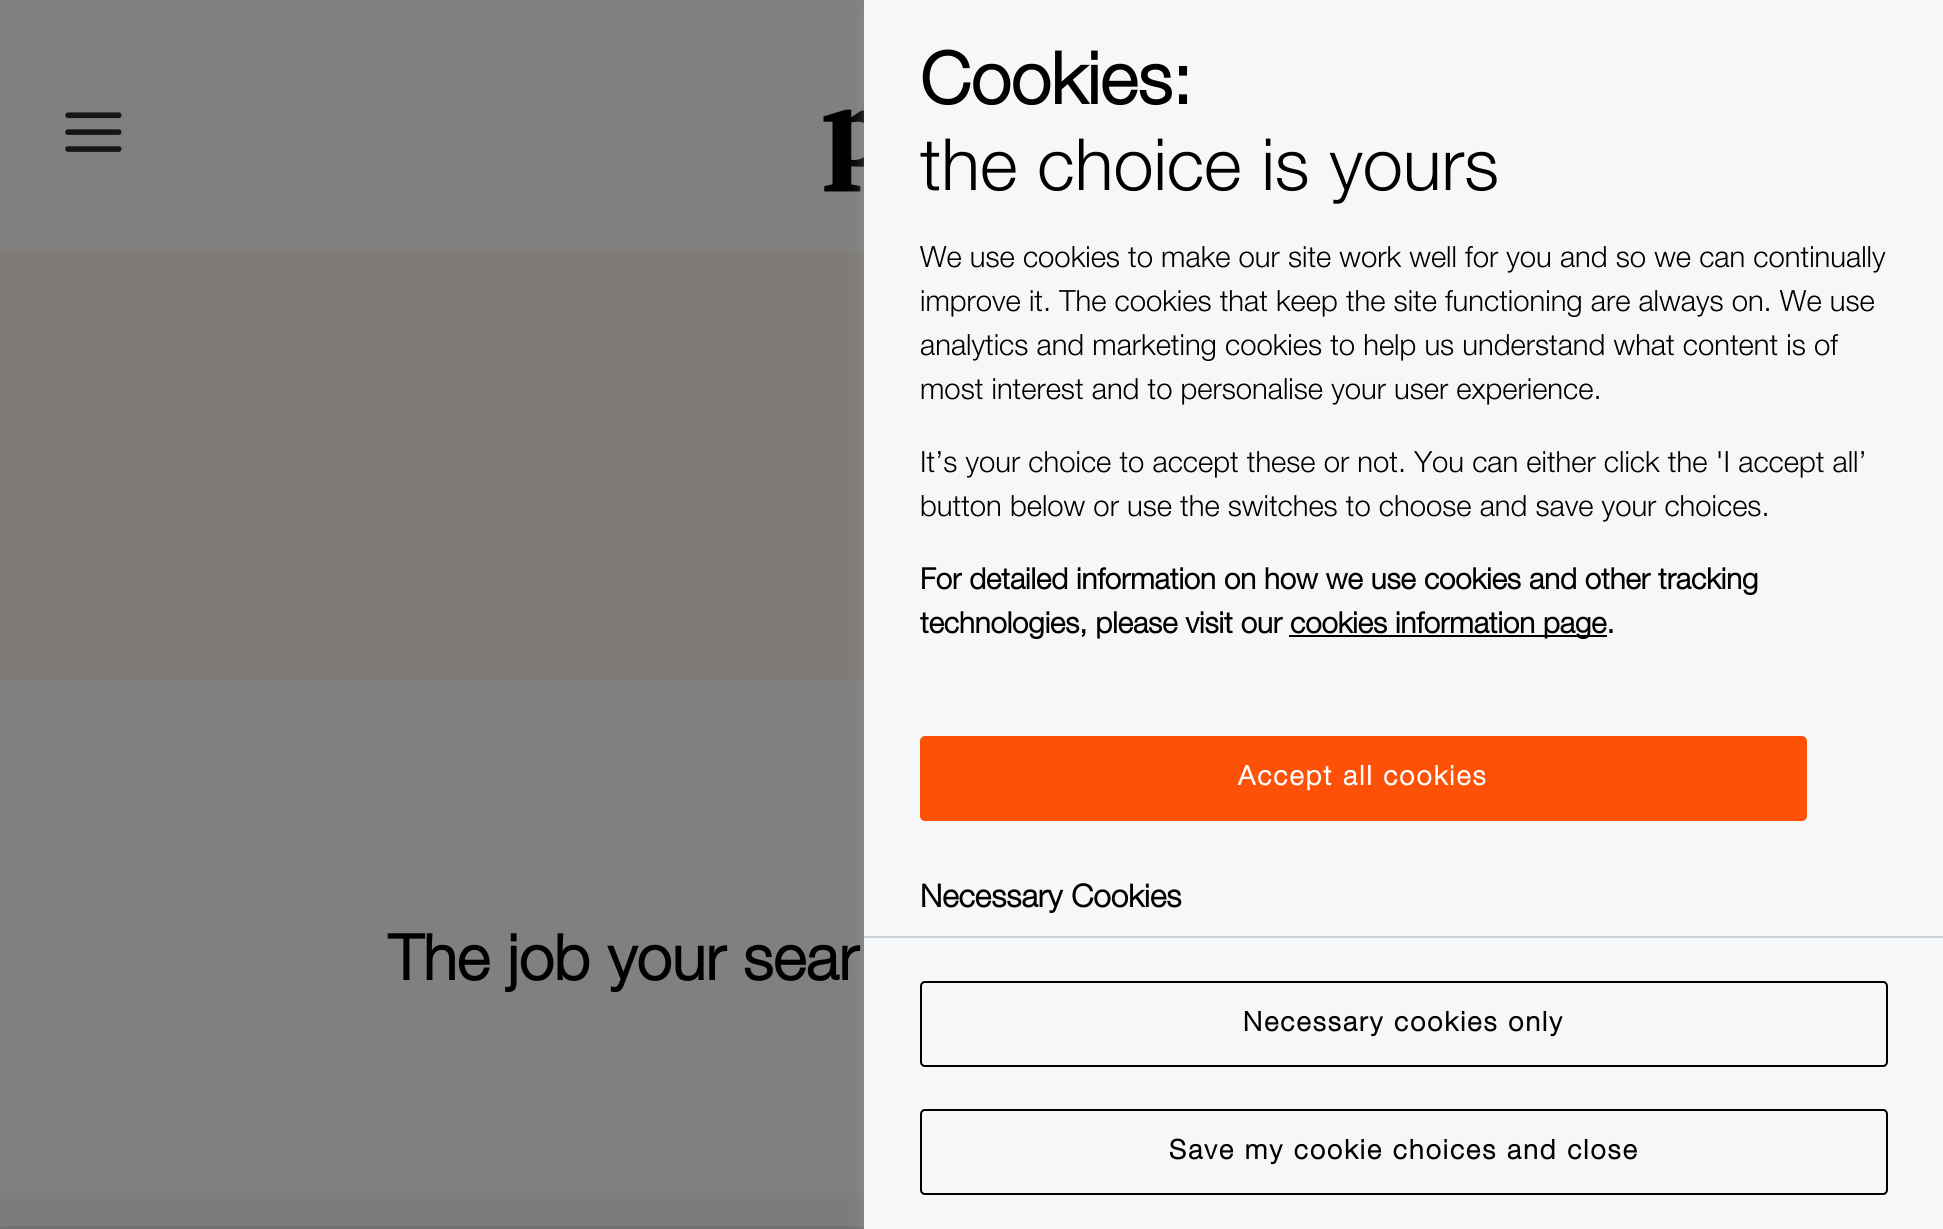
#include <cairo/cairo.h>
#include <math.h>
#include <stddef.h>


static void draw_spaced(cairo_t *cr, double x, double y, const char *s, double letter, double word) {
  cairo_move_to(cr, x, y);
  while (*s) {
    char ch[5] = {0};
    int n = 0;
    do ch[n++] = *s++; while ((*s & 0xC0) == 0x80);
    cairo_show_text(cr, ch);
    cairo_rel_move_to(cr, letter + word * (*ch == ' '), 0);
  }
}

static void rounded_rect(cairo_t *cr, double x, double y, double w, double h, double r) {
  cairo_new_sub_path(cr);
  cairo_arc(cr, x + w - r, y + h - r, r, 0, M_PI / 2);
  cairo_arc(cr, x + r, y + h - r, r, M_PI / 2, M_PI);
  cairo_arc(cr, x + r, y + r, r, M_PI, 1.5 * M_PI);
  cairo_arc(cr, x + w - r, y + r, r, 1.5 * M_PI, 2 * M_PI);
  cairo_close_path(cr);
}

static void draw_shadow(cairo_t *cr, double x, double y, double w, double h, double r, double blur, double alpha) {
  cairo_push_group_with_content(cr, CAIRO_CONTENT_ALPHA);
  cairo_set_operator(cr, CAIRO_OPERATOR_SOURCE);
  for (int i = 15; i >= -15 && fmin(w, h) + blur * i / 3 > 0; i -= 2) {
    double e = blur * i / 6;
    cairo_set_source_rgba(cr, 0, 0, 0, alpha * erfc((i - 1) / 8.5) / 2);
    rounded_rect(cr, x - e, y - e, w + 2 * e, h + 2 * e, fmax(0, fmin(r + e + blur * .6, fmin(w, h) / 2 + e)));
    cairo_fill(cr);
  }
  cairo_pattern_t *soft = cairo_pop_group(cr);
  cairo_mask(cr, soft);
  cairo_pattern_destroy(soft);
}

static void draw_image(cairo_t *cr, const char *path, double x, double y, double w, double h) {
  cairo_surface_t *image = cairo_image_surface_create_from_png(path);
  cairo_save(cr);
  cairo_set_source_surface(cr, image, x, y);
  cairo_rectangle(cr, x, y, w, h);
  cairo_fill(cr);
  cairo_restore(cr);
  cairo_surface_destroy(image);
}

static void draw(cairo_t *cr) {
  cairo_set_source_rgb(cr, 128 / 255.0, 128 / 255.0, 128 / 255.0);
  cairo_paint(cr);
  draw_image(cr, "images/1.png", 65, 112, 57, 40);
  draw_image(cr, "images/2.png", 823, 109, 41, 83);
  cairo_set_source_rgb(cr, 128 / 255.0, 123 / 255.0, 119 / 255.0);
  cairo_rectangle(cr, 0, 252, 864, 428);
  cairo_fill(cr);
  cairo_set_source_rgb(cr, 123 / 255.0, 124 / 255.0, 124 / 255.0);
  cairo_rectangle(cr, 0, 1193, 864, 36);
  cairo_fill(cr);
  cairo_set_source_rgb(cr, 114 / 255.0, 114 / 255.0, 114 / 255.0);
  rounded_rect(cr, 0, 1226, 873, 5, 2.5);
  cairo_fill(cr);
  cairo_set_source_rgb(cr, 153 / 255.0, 153 / 255.0, 153 / 255.0);
  draw_shadow(cr, 871, 11, 1066, 1218, 0, 11, 1);
  cairo_set_source_rgb(cr, 245 / 255.0, 247 / 255.0, 248 / 255.0);
  cairo_rectangle(cr, 864, 0, 1079, 1229);
  cairo_fill(cr);
  cairo_set_source_rgb(cr, 0, 0, 0);
  cairo_rectangle(cr, 1289, 635, 318, 2);
  cairo_fill(cr);
  cairo_set_source_rgb(cr, 253 / 255.0, 81 / 255.0, 8 / 255.0);
  rounded_rect(cr, 921, 737, 885, 83, 4);
  cairo_fill_preserve(cr);
  cairo_stroke(cr);
  cairo_set_source_rgb(cr, 203 / 255.0, 209 / 255.0, 214 / 255.0);
  cairo_rectangle(cr, 864, 936, 1079, 2);
  cairo_fill(cr);
  rounded_rect(cr, 921, 982, 966, 84, 4);
  cairo_set_source_rgb(cr, 0, 0, 0);
  cairo_stroke(cr);
  rounded_rect(cr, 921, 1110, 966, 84, 4);
  cairo_stroke(cr);
  cairo_select_font_face(cr, "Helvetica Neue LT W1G", CAIRO_FONT_SLANT_NORMAL, CAIRO_FONT_WEIGHT_BOLD);
  cairo_set_font_size(cr, 72);
  cairo_move_to(cr, 920, 104);
  cairo_show_text(cr, "Cookies:");
  cairo_select_font_face(cr, "Helvetica Neue LT W1G Light", CAIRO_FONT_SLANT_NORMAL, CAIRO_FONT_WEIGHT_NORMAL);
  cairo_move_to(cr, 920, 190);
  cairo_show_text(cr, "the choice is yours");
  cairo_set_font_size(cr, 29.25);
  cairo_move_to(cr, 920, 267);
  cairo_show_text(cr, "We use cookies to make our site work well for you and so we can continually");
  cairo_move_to(cr, 920, 311);
  cairo_show_text(cr, "improve it. The cookies that keep the site functioning are always on. We use");
  cairo_move_to(cr, 920, 355);
  cairo_show_text(cr, "analytics and marketing cookies to help us understand what content is of");
  cairo_move_to(cr, 920, 399);
  cairo_show_text(cr, "most interest and to personalise your user experience.");
  cairo_move_to(cr, 920, 472);
  cairo_show_text(cr, "It’s your choice to accept these or not. You can either click the 'I accept all’");
  cairo_move_to(cr, 920, 516);
  cairo_show_text(cr, "button below or use the switches to choose and save your choices.");
  cairo_select_font_face(cr, "Helvetica Neue LT W1G", CAIRO_FONT_SLANT_NORMAL, CAIRO_FONT_WEIGHT_BOLD);
  cairo_move_to(cr, 920, 589);
  cairo_show_text(cr, "For detailed information on how we use cookies and other tracking");
  cairo_move_to(cr, 920, 633);
  cairo_show_text(cr, "technologies, please visit our");
  cairo_move_to(cr, 1290, 633);
  cairo_show_text(cr, "cookies information page.");
  cairo_set_font_size(cr, 27);
  cairo_set_source_rgb(cr, 1, 1, 1);
  draw_spaced(cr, 1238, 785, "Accept all cookies", 2.15, 0);
  cairo_set_font_size(cr, 31.5);
  cairo_set_source_rgb(cr, 0, 0, 0);
  cairo_move_to(cr, 920, 907);
  cairo_show_text(cr, "Necessary Cookies");
  cairo_set_font_size(cr, 27);
  draw_spaced(cr, 1243, 1031, "Necessary cookies only", 2.15, 0);
  draw_spaced(cr, 1169, 1159, "Save my cookie choices and close", 2.15, 0);
  cairo_set_font_size(cr, 63);
  cairo_move_to(cr, 388, 980);
  cairo_show_text(cr, "The job your sear");
}

int main(void) {
  cairo_surface_t *surface = cairo_image_surface_create(CAIRO_FORMAT_RGB24, 1943, 1229);
  cairo_t *cr = cairo_create(surface);
  cairo_font_options_t *options = cairo_font_options_create();
  cairo_font_options_set_hint_metrics(options, CAIRO_HINT_METRICS_OFF);
  cairo_font_options_set_hint_style(options, CAIRO_HINT_STYLE_NONE);
  cairo_set_font_options(cr, options);
  cairo_set_miter_limit(cr, 4);
  draw(cr);
  cairo_surface_write_to_png(surface, "out.png");
  cairo_font_options_destroy(options);
  cairo_destroy(cr);
  cairo_surface_destroy(surface);
  return 0;
}
